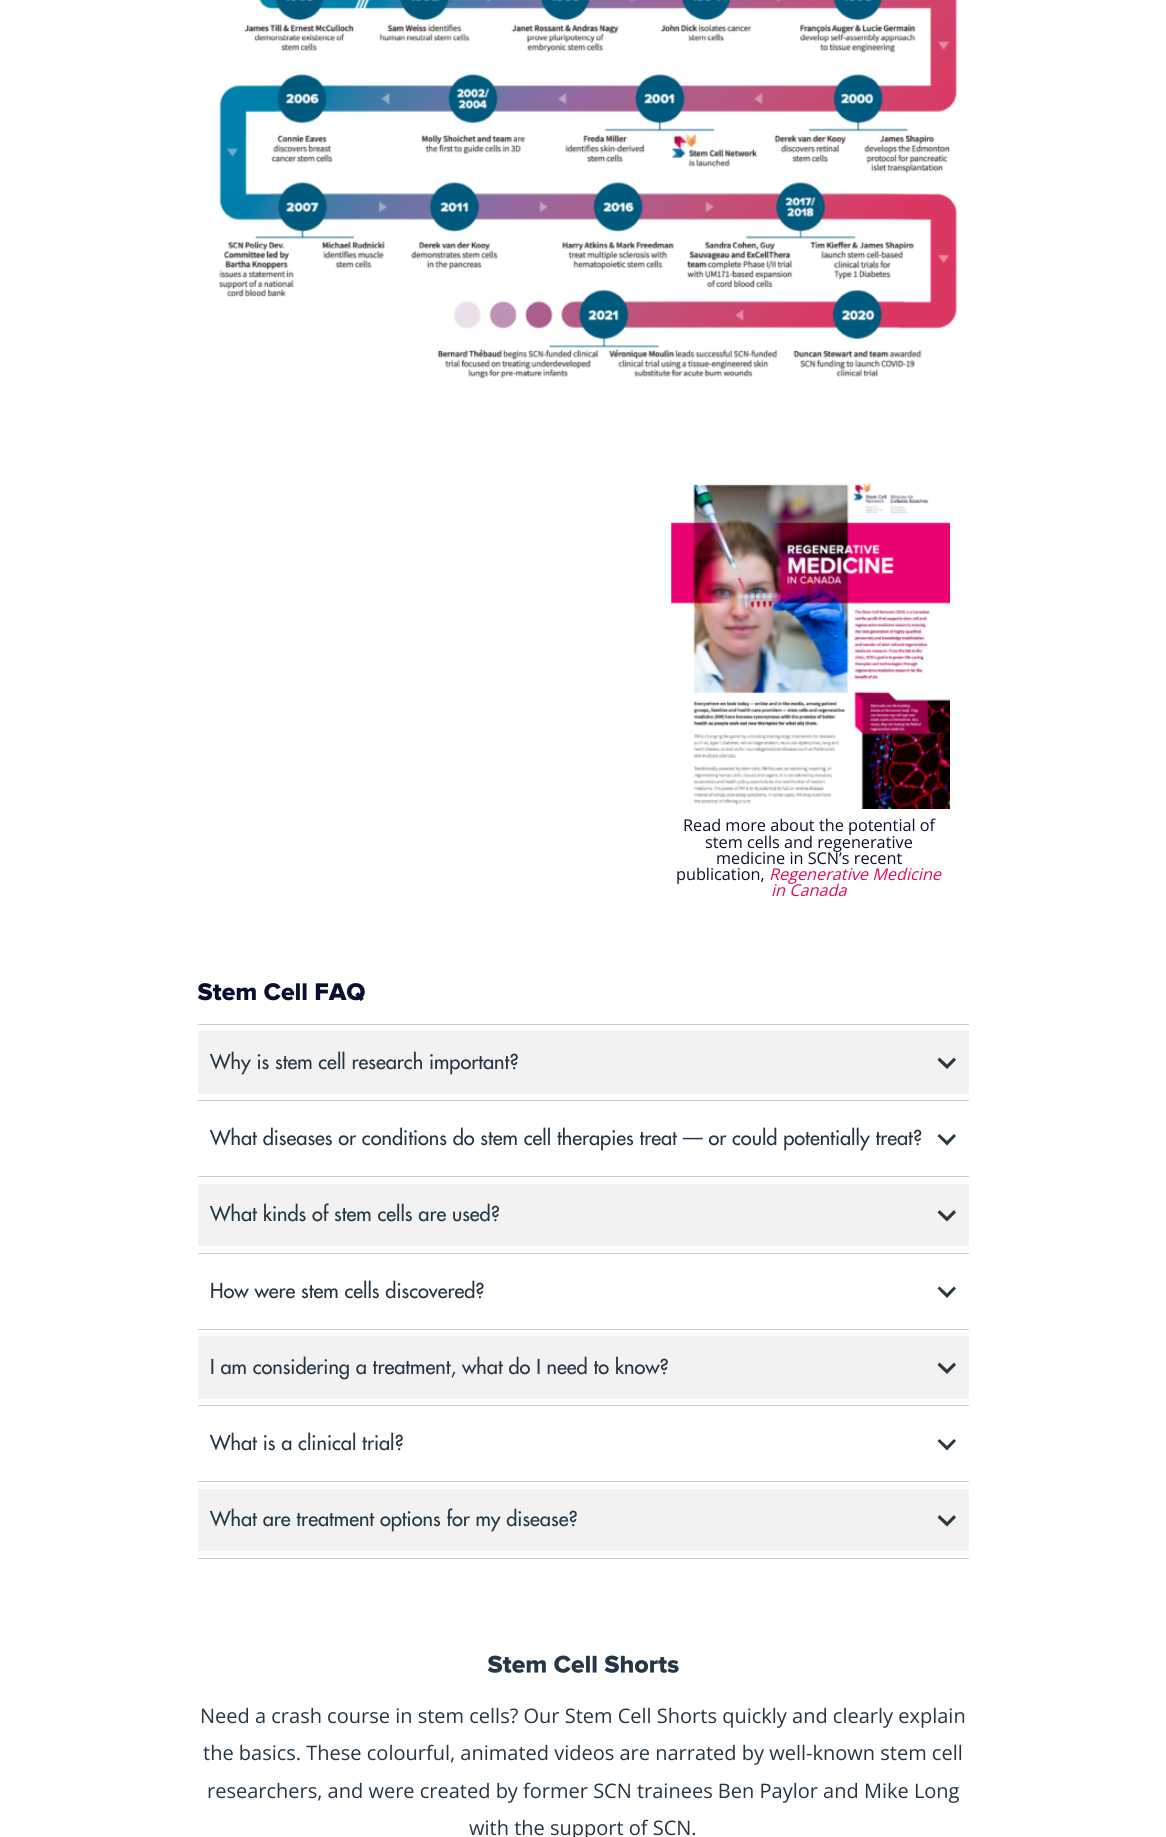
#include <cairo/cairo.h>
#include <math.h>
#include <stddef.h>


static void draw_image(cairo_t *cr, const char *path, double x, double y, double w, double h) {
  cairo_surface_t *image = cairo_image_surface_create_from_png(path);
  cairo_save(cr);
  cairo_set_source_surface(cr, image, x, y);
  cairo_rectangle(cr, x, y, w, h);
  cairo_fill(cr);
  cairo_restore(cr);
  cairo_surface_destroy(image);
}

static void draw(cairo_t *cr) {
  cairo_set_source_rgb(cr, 1, 1, 1);
  cairo_paint(cr);
  draw_image(cr, "images/1.png", 219, 0, 738, 379);
  draw_image(cr, "images/2.png", 671, 483, 279, 326);
  draw_image(cr, "images/3.png", 197, 983, 168, 18);
  cairo_set_source_rgb(cr, 204 / 255.0, 204 / 255.0, 204 / 255.0);
  cairo_rectangle(cr, 198, 1024, 771, 1);
  cairo_fill(cr);
  cairo_set_source_rgb(cr, 242 / 255.0, 242 / 255.0, 242 / 255.0);
  cairo_rectangle(cr, 198, 1031, 771, 63);
  cairo_fill(cr);
  cairo_set_source_rgb(cr, 42 / 255.0, 57 / 255.0, 65 / 255.0);
  cairo_new_path(cr);
  cairo_move_to(cr, 939.5, 1057.5);
  cairo_line_to(cr, 947, 1064.5);
  cairo_line_to(cr, 954, 1057.5);
  cairo_line_to(cr, 956, 1060);
  cairo_line_to(cr, 947, 1069);
  cairo_line_to(cr, 937.5, 1060);
  cairo_close_path(cr);
  cairo_fill(cr);
  cairo_set_source_rgb(cr, 204 / 255.0, 204 / 255.0, 204 / 255.0);
  cairo_rectangle(cr, 198, 1100, 771, 1);
  cairo_fill(cr);
  cairo_set_source_rgb(cr, 42 / 255.0, 57 / 255.0, 65 / 255.0);
  cairo_new_path(cr);
  cairo_move_to(cr, 939.5, 1134);
  cairo_line_to(cr, 947, 1141);
  cairo_line_to(cr, 954, 1134);
  cairo_line_to(cr, 956, 1136);
  cairo_line_to(cr, 947, 1145.5);
  cairo_line_to(cr, 937.5, 1136);
  cairo_close_path(cr);
  cairo_fill(cr);
  cairo_set_source_rgb(cr, 204 / 255.0, 204 / 255.0, 204 / 255.0);
  cairo_rectangle(cr, 198, 1176, 771, 1);
  cairo_fill(cr);
  cairo_set_source_rgb(cr, 242 / 255.0, 242 / 255.0, 242 / 255.0);
  cairo_rectangle(cr, 198, 1184, 771, 62);
  cairo_fill(cr);
  cairo_set_source_rgb(cr, 42 / 255.0, 57 / 255.0, 65 / 255.0);
  cairo_new_path(cr);
  cairo_move_to(cr, 939.5, 1210);
  cairo_line_to(cr, 947, 1217);
  cairo_line_to(cr, 954, 1210);
  cairo_line_to(cr, 956, 1212.5);
  cairo_line_to(cr, 947, 1221.5);
  cairo_line_to(cr, 937.5, 1212.5);
  cairo_close_path(cr);
  cairo_fill(cr);
  cairo_set_source_rgb(cr, 204 / 255.0, 204 / 255.0, 204 / 255.0);
  cairo_rectangle(cr, 198, 1253, 771, 1);
  cairo_fill(cr);
  cairo_set_source_rgb(cr, 42 / 255.0, 57 / 255.0, 65 / 255.0);
  cairo_new_path(cr);
  cairo_move_to(cr, 939.5, 1286.5);
  cairo_line_to(cr, 947, 1293.5);
  cairo_line_to(cr, 954, 1286.5);
  cairo_line_to(cr, 956, 1288.5);
  cairo_line_to(cr, 947, 1298);
  cairo_line_to(cr, 937.5, 1288.5);
  cairo_close_path(cr);
  cairo_fill(cr);
  cairo_set_source_rgb(cr, 204 / 255.0, 204 / 255.0, 204 / 255.0);
  cairo_rectangle(cr, 198, 1329, 771, 1);
  cairo_fill(cr);
  cairo_set_source_rgb(cr, 242 / 255.0, 242 / 255.0, 242 / 255.0);
  cairo_rectangle(cr, 198, 1336, 771, 63);
  cairo_fill(cr);
  cairo_set_source_rgb(cr, 42 / 255.0, 57 / 255.0, 65 / 255.0);
  cairo_new_path(cr);
  cairo_move_to(cr, 939.5, 1362.5);
  cairo_line_to(cr, 947, 1369.5);
  cairo_line_to(cr, 954, 1362.5);
  cairo_line_to(cr, 956, 1365);
  cairo_line_to(cr, 947, 1374);
  cairo_line_to(cr, 937.5, 1365);
  cairo_close_path(cr);
  cairo_fill(cr);
  cairo_set_source_rgb(cr, 204 / 255.0, 204 / 255.0, 204 / 255.0);
  cairo_rectangle(cr, 198, 1405, 771, 1);
  cairo_fill(cr);
  cairo_set_source_rgb(cr, 42 / 255.0, 57 / 255.0, 65 / 255.0);
  cairo_new_path(cr);
  cairo_move_to(cr, 939.5, 1439);
  cairo_line_to(cr, 947, 1446);
  cairo_line_to(cr, 954, 1439);
  cairo_line_to(cr, 956, 1441);
  cairo_line_to(cr, 947, 1450.5);
  cairo_line_to(cr, 937.5, 1441);
  cairo_close_path(cr);
  cairo_fill(cr);
  cairo_set_source_rgb(cr, 204 / 255.0, 204 / 255.0, 204 / 255.0);
  cairo_rectangle(cr, 198, 1481, 771, 1);
  cairo_fill(cr);
  cairo_rectangle(cr, 198, 1558, 771, 1);
  cairo_fill(cr);
  cairo_set_source_rgb(cr, 242 / 255.0, 242 / 255.0, 242 / 255.0);
  cairo_rectangle(cr, 198, 1489, 771, 62);
  cairo_fill(cr);
  cairo_set_source_rgb(cr, 42 / 255.0, 57 / 255.0, 65 / 255.0);
  cairo_new_path(cr);
  cairo_move_to(cr, 939.5, 1515);
  cairo_line_to(cr, 947, 1522);
  cairo_line_to(cr, 954, 1515);
  cairo_line_to(cr, 956, 1517.5);
  cairo_line_to(cr, 947, 1526.5);
  cairo_line_to(cr, 937.5, 1517.5);
  cairo_close_path(cr);
  cairo_fill(cr);
  draw_image(cr, "images/4.png", 487, 1655, 192, 18);
  cairo_select_font_face(cr, "Open Sans", CAIRO_FONT_SLANT_NORMAL, CAIRO_FONT_WEIGHT_NORMAL);
  cairo_set_font_size(cr, 16.25);
  cairo_set_source_rgb(cr, 10 / 255.0, 15 / 255.0, 50 / 255.0);
  cairo_move_to(cr, 683, 831);
  cairo_show_text(cr, "Read more about the potential of");
  cairo_move_to(cr, 705, 848);
  cairo_show_text(cr, "stem cells and regenerative");
  cairo_move_to(cr, 716, 864);
  cairo_show_text(cr, "medicine in SCN’s recent");
  cairo_move_to(cr, 676, 880);
  cairo_show_text(cr, "publication,");
  cairo_select_font_face(cr, "Open Sans", CAIRO_FONT_SLANT_ITALIC, CAIRO_FONT_WEIGHT_NORMAL);
  cairo_set_source_rgb(cr, 227 / 255.0, 11 / 255.0, 93 / 255.0);
  cairo_move_to(cr, 769, 880);
  cairo_show_text(cr, "Regenerative Medicine");
  cairo_move_to(cr, 771, 896);
  cairo_show_text(cr, "in Canada");
  cairo_select_font_face(cr, "Futura", CAIRO_FONT_SLANT_NORMAL, CAIRO_FONT_WEIGHT_NORMAL);
  cairo_set_font_size(cr, 20);
  cairo_set_source_rgb(cr, 37 / 255.0, 55 / 255.0, 70 / 255.0);
  cairo_move_to(cr, 210, 1069);
  cairo_show_text(cr, "Why is stem cell research important?");
  cairo_move_to(cr, 210, 1145);
  cairo_show_text(cr, "What diseases or conditions do stem cell therapies treat — or could potentially treat?");
  cairo_move_to(cr, 210, 1221);
  cairo_show_text(cr, "What kinds of stem cells are used?");
  cairo_move_to(cr, 210, 1298);
  cairo_show_text(cr, "How were stem cells discovered?");
  cairo_move_to(cr, 210, 1374);
  cairo_show_text(cr, "I am considering a treatment, what do I need to know?");
  cairo_move_to(cr, 210, 1450);
  cairo_show_text(cr, "What is a clinical trial?");
  cairo_move_to(cr, 210, 1526);
  cairo_show_text(cr, "What are treatment options for my disease?");
  cairo_select_font_face(cr, "Open Sans", CAIRO_FONT_SLANT_NORMAL, CAIRO_FONT_WEIGHT_NORMAL);
  cairo_move_to(cr, 200, 1723);
  cairo_show_text(cr, "Need a crash course in stem cells? Our Stem Cell Shorts quickly and clearly explain");
  cairo_move_to(cr, 203, 1760);
  cairo_show_text(cr, "the basics. These colourful, animated videos are narrated by well-known stem cell");
  cairo_move_to(cr, 207, 1798);
  cairo_show_text(cr, "researchers, and were created by former SCN trainees Ben Paylor and Mike Long");
  cairo_move_to(cr, 469, 1835);
  cairo_show_text(cr, "with the support of SCN.");
}

int main(void) {
  cairo_surface_t *surface = cairo_image_surface_create(CAIRO_FORMAT_RGB24, 1166, 1837);
  cairo_t *cr = cairo_create(surface);
  cairo_font_options_t *options = cairo_font_options_create();
  cairo_font_options_set_hint_metrics(options, CAIRO_HINT_METRICS_OFF);
  cairo_font_options_set_hint_style(options, CAIRO_HINT_STYLE_NONE);
  cairo_set_font_options(cr, options);
  cairo_set_miter_limit(cr, 4);
  draw(cr);
  cairo_surface_write_to_png(surface, "out.png");
  cairo_font_options_destroy(options);
  cairo_destroy(cr);
  cairo_surface_destroy(surface);
  return 0;
}
